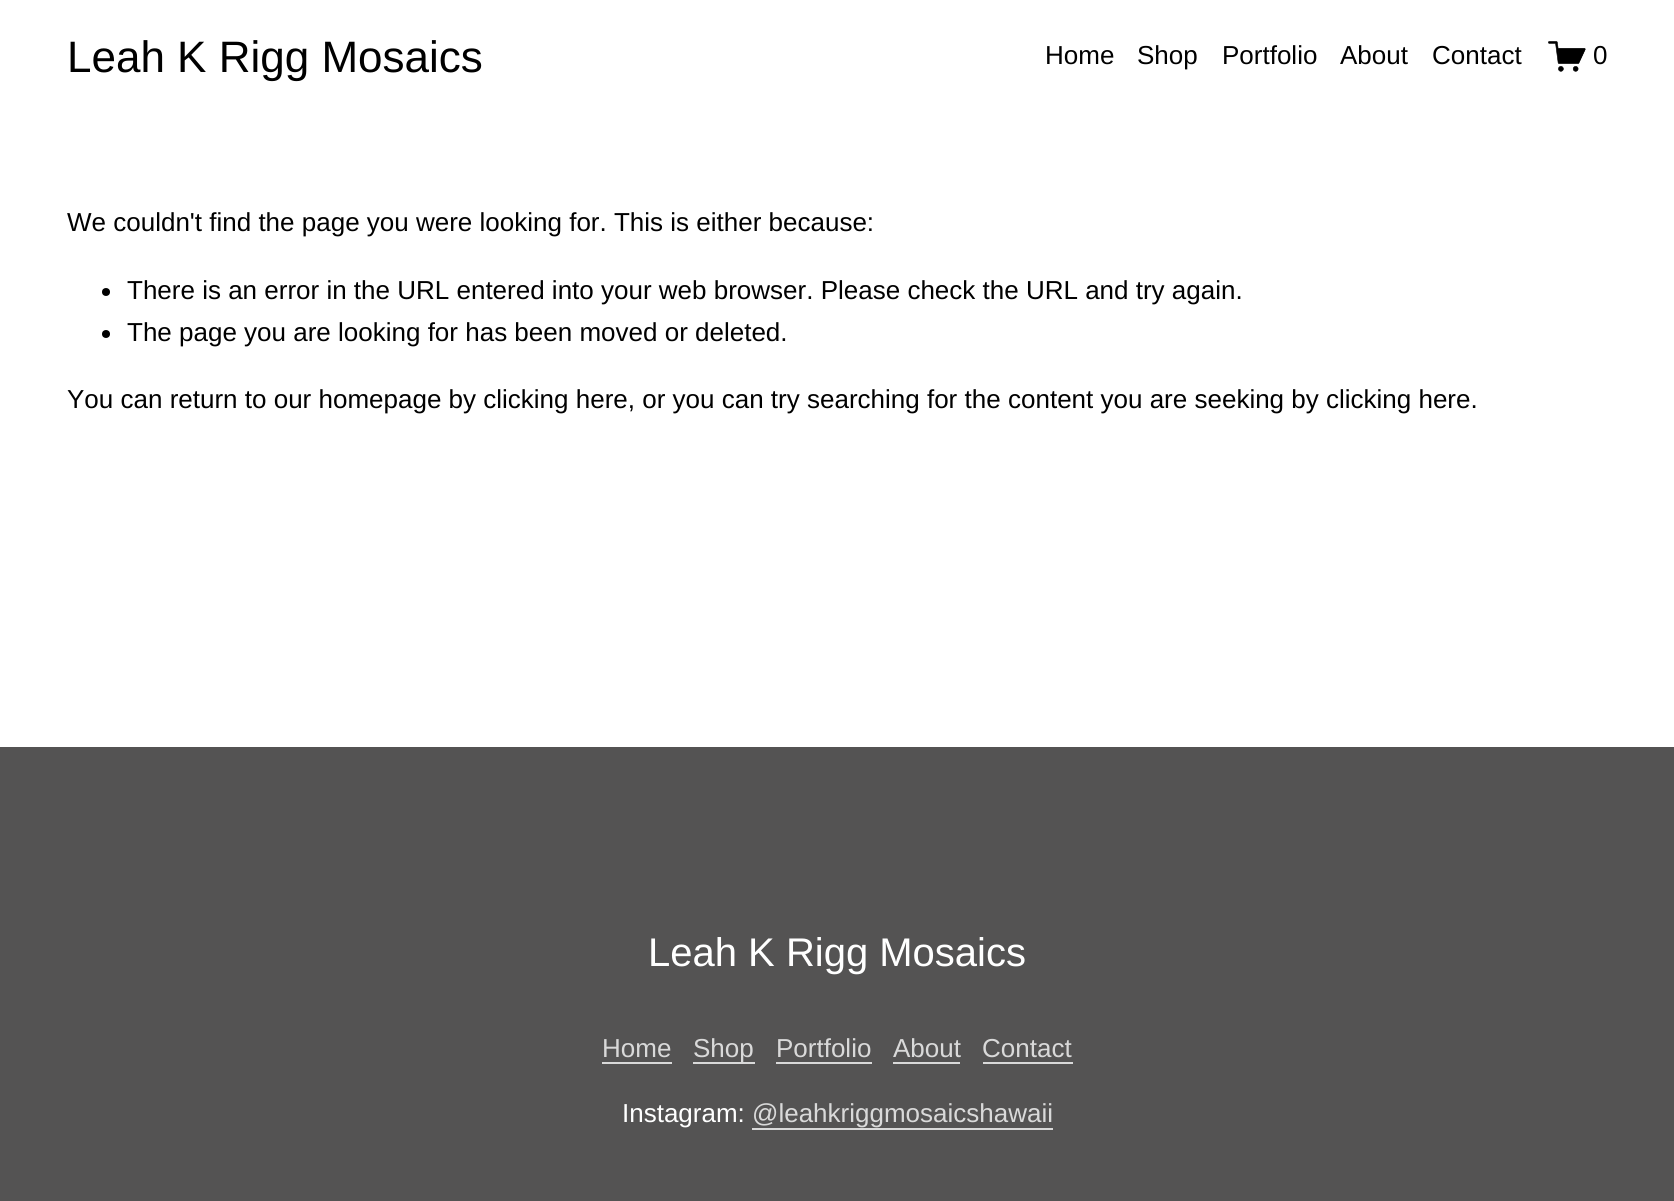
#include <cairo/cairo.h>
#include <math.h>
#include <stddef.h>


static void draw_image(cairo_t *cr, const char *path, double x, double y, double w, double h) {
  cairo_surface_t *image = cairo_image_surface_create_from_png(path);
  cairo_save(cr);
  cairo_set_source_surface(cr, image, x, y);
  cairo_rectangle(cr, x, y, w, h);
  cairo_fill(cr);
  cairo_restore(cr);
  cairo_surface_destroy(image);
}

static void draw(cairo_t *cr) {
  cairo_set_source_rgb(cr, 1, 1, 1);
  cairo_paint(cr);
  draw_image(cr, "images/1.png", 1548, 41, 38, 31);
  cairo_set_source_rgb(cr, 0, 0, 0);
  cairo_arc(cr, 106, 292, 4, 0, 2 * M_PI);
  cairo_fill(cr);
  cairo_arc(cr, 106, 334, 4, 0, 2 * M_PI);
  cairo_fill(cr);
  cairo_set_source_rgb(cr, 84 / 255.0, 83 / 255.0, 83 / 255.0);
  cairo_rectangle(cr, 0, 747, 1674, 454);
  cairo_fill(cr);
  cairo_set_source_rgb(cr, 217 / 255.0, 217 / 255.0, 217 / 255.0);
  cairo_rectangle(cr, 602, 1062, 70, 2);
  cairo_fill(cr);
  cairo_rectangle(cr, 693, 1062, 62, 2);
  cairo_fill(cr);
  cairo_rectangle(cr, 776, 1062, 96, 2);
  cairo_fill(cr);
  cairo_rectangle(cr, 893, 1062, 67, 2);
  cairo_fill(cr);
  cairo_rectangle(cr, 983, 1062, 90, 2);
  cairo_fill(cr);
  cairo_rectangle(cr, 752, 1128, 301, 2);
  cairo_fill(cr);
  cairo_select_font_face(cr, "Liberation Sans", CAIRO_FONT_SLANT_NORMAL, CAIRO_FONT_WEIGHT_NORMAL);
  cairo_set_font_size(cr, 44);
  cairo_set_source_rgb(cr, 0, 0, 0);
  cairo_move_to(cr, 67, 72);
  cairo_show_text(cr, "Leah K Rigg Mosaics");
  cairo_set_font_size(cr, 26);
  cairo_move_to(cr, 1045, 64);
  cairo_show_text(cr, "Home");
  cairo_move_to(cr, 1137, 64);
  cairo_show_text(cr, "Shop");
  cairo_move_to(cr, 1222, 64);
  cairo_show_text(cr, "Portfolio");
  cairo_move_to(cr, 1340, 64);
  cairo_show_text(cr, "About");
  cairo_move_to(cr, 1432, 64);
  cairo_show_text(cr, "Contact");
  cairo_move_to(cr, 1593, 64);
  cairo_show_text(cr, "0");
  cairo_move_to(cr, 67, 231);
  cairo_show_text(cr, "We couldn't find the page you were looking for. This is either because:");
  cairo_move_to(cr, 127, 299);
  cairo_show_text(cr, "There is an error in the URL entered into your web browser. Please check the URL and try again.");
  cairo_move_to(cr, 127, 341);
  cairo_show_text(cr, "The page you are looking for has been moved or deleted.");
  cairo_move_to(cr, 67, 408);
  cairo_show_text(cr, "You can return to our homepage by clicking here, or you can try searching for the");
  cairo_move_to(cr, 1008, 408);
  cairo_show_text(cr, "content you are seeking by clicking here.");
  cairo_set_font_size(cr, 40);
  cairo_set_source_rgb(cr, 1, 1, 1);
  cairo_move_to(cr, 648, 966);
  cairo_show_text(cr, "Leah K Rigg Mosaics");
  cairo_set_font_size(cr, 26);
  cairo_set_source_rgb(cr, 217 / 255.0, 217 / 255.0, 217 / 255.0);
  cairo_move_to(cr, 602, 1057);
  cairo_show_text(cr, "Home");
  cairo_move_to(cr, 693, 1057);
  cairo_show_text(cr, "Shop");
  cairo_move_to(cr, 776, 1057);
  cairo_show_text(cr, "Portfolio");
  cairo_move_to(cr, 893, 1057);
  cairo_show_text(cr, "About");
  cairo_move_to(cr, 982, 1057);
  cairo_show_text(cr, "Contact");
  cairo_set_source_rgb(cr, 1, 1, 1);
  cairo_move_to(cr, 622, 1122);
  cairo_show_text(cr, "Instagram:");
  cairo_set_source_rgb(cr, 217 / 255.0, 217 / 255.0, 217 / 255.0);
  cairo_move_to(cr, 752, 1122);
  cairo_show_text(cr, "@leahkriggmosaicshawaii");
}

int main(void) {
  cairo_surface_t *surface = cairo_image_surface_create(CAIRO_FORMAT_RGB24, 1674, 1201);
  cairo_t *cr = cairo_create(surface);
  cairo_font_options_t *options = cairo_font_options_create();
  cairo_font_options_set_hint_metrics(options, CAIRO_HINT_METRICS_OFF);
  cairo_font_options_set_hint_style(options, CAIRO_HINT_STYLE_NONE);
  cairo_set_font_options(cr, options);
  cairo_set_miter_limit(cr, 4);
  draw(cr);
  cairo_surface_write_to_png(surface, "out.png");
  cairo_font_options_destroy(options);
  cairo_destroy(cr);
  cairo_surface_destroy(surface);
  return 0;
}
